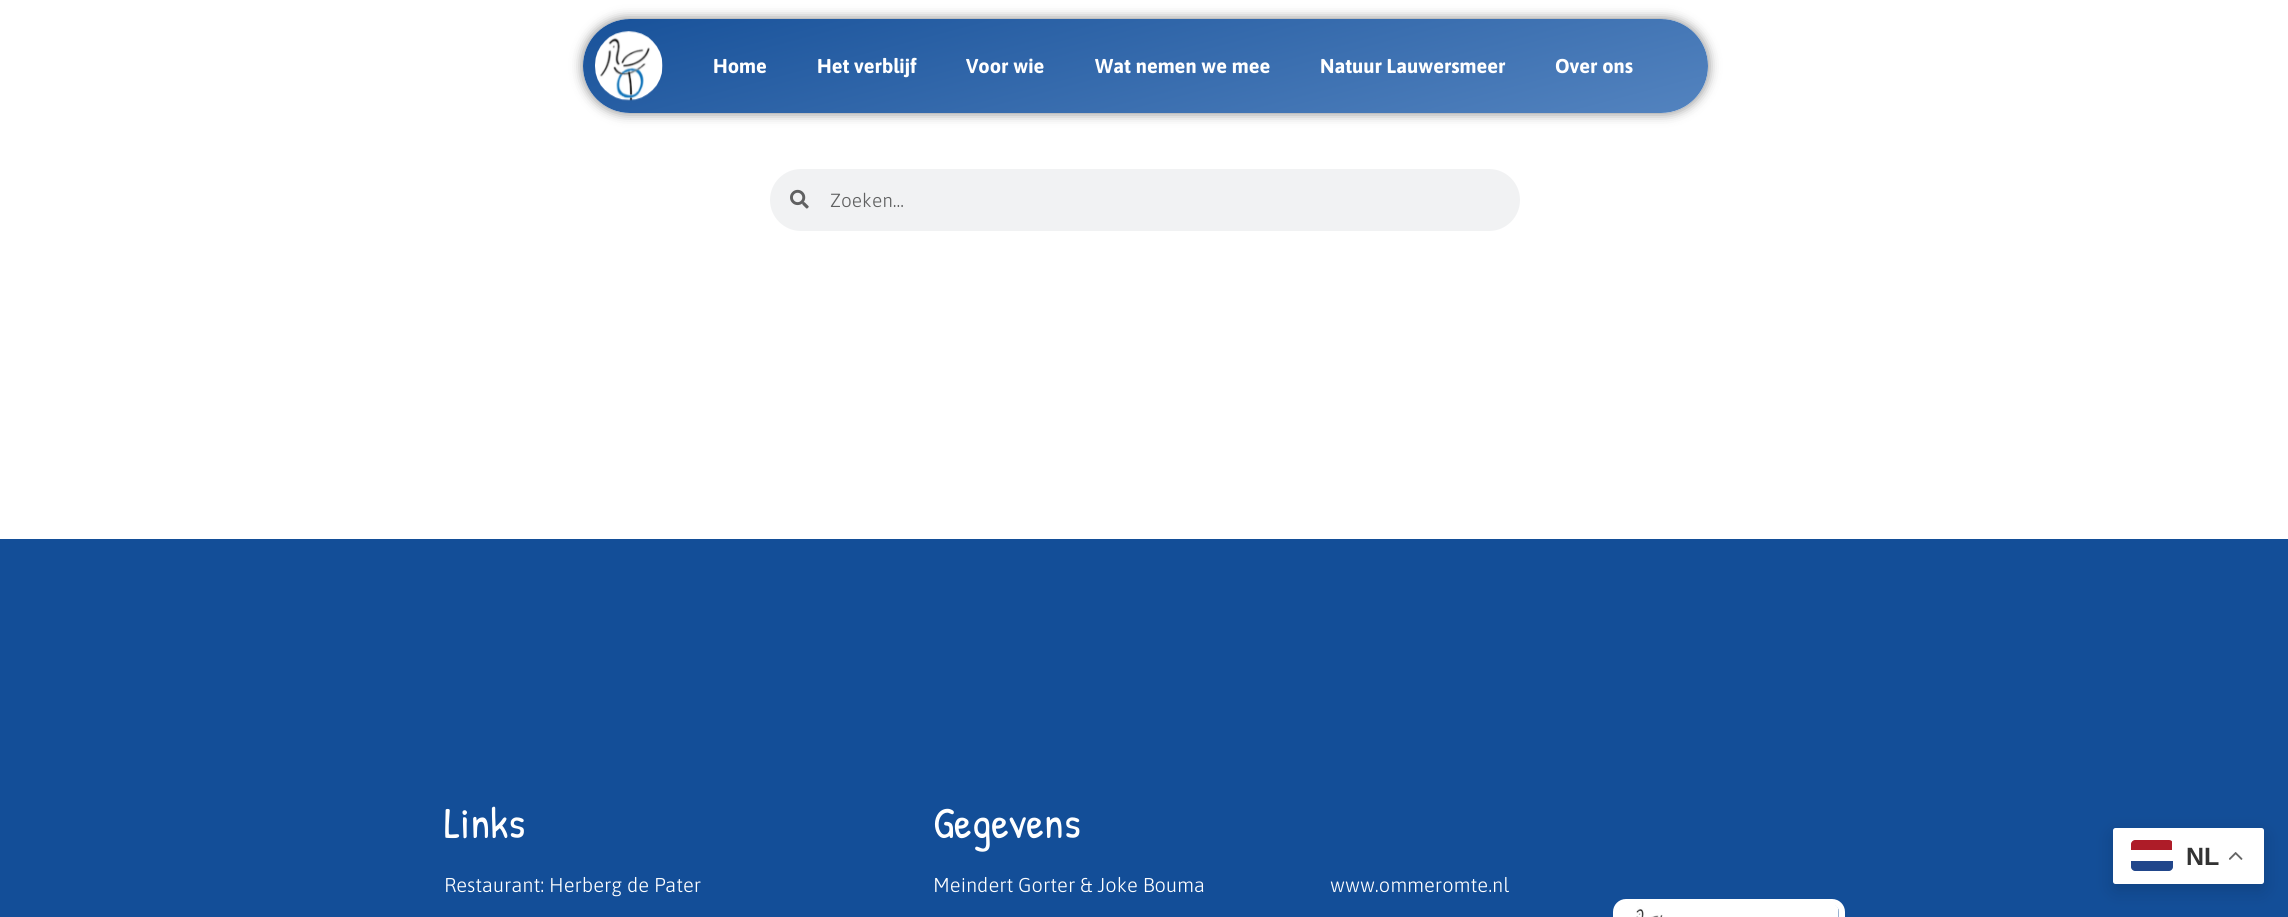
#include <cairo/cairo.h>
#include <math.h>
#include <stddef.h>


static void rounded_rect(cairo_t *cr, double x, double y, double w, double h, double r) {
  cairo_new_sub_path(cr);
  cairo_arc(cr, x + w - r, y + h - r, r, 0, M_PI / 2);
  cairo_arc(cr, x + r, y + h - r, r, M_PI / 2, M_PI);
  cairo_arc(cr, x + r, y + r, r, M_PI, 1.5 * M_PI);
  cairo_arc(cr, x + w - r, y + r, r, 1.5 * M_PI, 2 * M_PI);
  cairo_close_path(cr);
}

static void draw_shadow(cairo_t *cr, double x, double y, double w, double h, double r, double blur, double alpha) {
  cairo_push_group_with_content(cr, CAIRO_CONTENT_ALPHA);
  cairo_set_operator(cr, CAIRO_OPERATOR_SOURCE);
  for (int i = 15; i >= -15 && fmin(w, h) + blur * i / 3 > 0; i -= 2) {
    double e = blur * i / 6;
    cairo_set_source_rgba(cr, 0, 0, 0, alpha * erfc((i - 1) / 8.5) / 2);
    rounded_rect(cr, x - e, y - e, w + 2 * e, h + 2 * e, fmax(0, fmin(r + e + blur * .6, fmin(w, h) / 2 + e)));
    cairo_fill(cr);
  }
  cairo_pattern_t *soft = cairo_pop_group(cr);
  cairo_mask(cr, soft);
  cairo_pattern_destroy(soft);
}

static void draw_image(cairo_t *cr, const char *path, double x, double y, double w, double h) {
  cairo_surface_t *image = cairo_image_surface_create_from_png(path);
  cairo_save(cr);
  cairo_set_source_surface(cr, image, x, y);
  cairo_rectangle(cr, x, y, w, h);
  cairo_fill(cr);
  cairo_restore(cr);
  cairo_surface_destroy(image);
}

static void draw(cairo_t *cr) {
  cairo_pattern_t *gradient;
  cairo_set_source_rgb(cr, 1, 1, 1);
  cairo_paint(cr);
  cairo_save(cr);
  cairo_set_fill_rule(cr, CAIRO_FILL_RULE_EVEN_ODD);
  cairo_new_path(cr);
  cairo_move_to(cr, 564, 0);
  cairo_line_to(cr, 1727, 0);
  cairo_line_to(cr, 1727, 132);
  cairo_line_to(cr, 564, 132);
  cairo_close_path(cr);
  cairo_move_to(cr, 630, 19);
  cairo_line_to(cr, 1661, 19);
  cairo_curve_to(cr, 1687, 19, 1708, 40, 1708, 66);
  cairo_curve_to(cr, 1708, 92, 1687, 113, 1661, 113);
  cairo_line_to(cr, 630, 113);
  cairo_curve_to(cr, 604, 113, 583, 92, 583, 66);
  cairo_curve_to(cr, 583, 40, 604, 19, 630, 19);
  cairo_close_path(cr);
  cairo_clip(cr);
  cairo_set_source_rgb(cr, 0, 0, 0);
  draw_shadow(cr, 583, 19, 1125, 94, 47, 6, 0.5);
  cairo_restore(cr);
  gradient = cairo_pattern_create_linear(1096, -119, 1194, 250);
  cairo_pattern_add_color_stop_rgba(gradient, 0, 19 / 255.0, 78 / 255.0, 152 / 255.0, 0.98);
  cairo_pattern_add_color_stop_rgba(gradient, 1, 80 / 255.0, 129 / 255.0, 190 / 255.0, 0.98);
  cairo_set_source(cr, gradient);
  cairo_pattern_destroy(gradient);
  rounded_rect(cr, 583, 19, 1125, 94, 47);
  cairo_fill(cr);
  draw_image(cr, "images/1.png", 595, 31, 68, 70);
  cairo_set_source_rgb(cr, 241 / 255.0, 242 / 255.0, 243 / 255.0);
  rounded_rect(cr, 770, 169, 750, 62, 31);
  cairo_fill(cr);
  draw_image(cr, "images/2.png", 790, 189, 19, 20);
  cairo_set_source_rgb(cr, 19 / 255.0, 78 / 255.0, 152 / 255.0);
  cairo_rectangle(cr, 0, 539, 2288, 378);
  cairo_fill(cr);
  rounded_rect(cr, 1616, 902, 226, 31, 10);
  cairo_set_source_rgb(cr, 1, 1, 1);
  cairo_set_line_width(cr, 6);
  cairo_stroke(cr);
  draw_image(cr, "images/3.png", 1619, 905, 220, 12);
  cairo_set_source_rgb(cr, 0, 0, 0);
  draw_shadow(cr, 2113, 834, 151, 56, 2.5, 9.5, 0.15);
  cairo_set_source_rgb(cr, 1, 1, 1);
  rounded_rect(cr, 2113, 828, 151, 56, 2.5);
  cairo_fill(cr);
  cairo_set_source_rgb(cr, 33 / 255.0, 70 / 255.0, 139 / 255.0);
  cairo_new_path(cr);
  cairo_move_to(cr, 2131, 861);
  cairo_line_to(cr, 2173, 861);
  cairo_line_to(cr, 2173, 867);
  cairo_curve_to(cr, 2173, 869, 2171, 871, 2169, 871);
  cairo_line_to(cr, 2135, 871);
  cairo_curve_to(cr, 2133, 871, 2131, 869, 2131, 867);
  cairo_close_path(cr);
  cairo_fill(cr);
  cairo_save(cr);
  rounded_rect(cr, 2131, 840, 42, 31, 4);
  cairo_clip(cr);
  cairo_set_source_rgb(cr, 174 / 255.0, 28 / 255.0, 40 / 255.0);
  cairo_new_path(cr);
  cairo_move_to(cr, 2135, 840);
  cairo_line_to(cr, 2172, 840);
  cairo_line_to(cr, 2172, 850);
  cairo_line_to(cr, 2131, 850);
  cairo_line_to(cr, 2131, 844);
  cairo_curve_to(cr, 2131, 842, 2133, 840, 2135, 840);
  cairo_close_path(cr);
  cairo_fill(cr);
  cairo_restore(cr);
  draw_image(cr, "images/4.png", 2229, 852, 14, 8);
  cairo_select_font_face(cr, "Asap", CAIRO_FONT_SLANT_NORMAL, CAIRO_FONT_WEIGHT_BOLD);
  cairo_set_font_size(cr, 20);
  cairo_set_source_rgb(cr, 1, 1, 1);
  cairo_move_to(cr, 713, 73);
  cairo_show_text(cr, "Home");
  cairo_move_to(cr, 817, 73);
  cairo_show_text(cr, "Het verblijf");
  cairo_move_to(cr, 966, 73);
  cairo_show_text(cr, "Voor wie");
  cairo_move_to(cr, 1095, 73);
  cairo_show_text(cr, "Wat nemen we mee");
  cairo_move_to(cr, 1320, 73);
  cairo_show_text(cr, "Natuur Lauwersmeer");
  cairo_move_to(cr, 1555, 73);
  cairo_show_text(cr, "Over ons");
  cairo_select_font_face(cr, "Asap Light", CAIRO_FONT_SLANT_NORMAL, CAIRO_FONT_WEIGHT_NORMAL);
  cairo_set_font_size(cr, 19);
  cairo_set_source_rgb(cr, 96 / 255.0, 97 / 255.0, 97 / 255.0);
  cairo_move_to(cr, 830, 207);
  cairo_show_text(cr, "Zoeken...");
  cairo_select_font_face(cr, "Patrick Hand", CAIRO_FONT_SLANT_NORMAL, CAIRO_FONT_WEIGHT_NORMAL);
  cairo_set_font_size(cr, 44);
  cairo_set_source_rgb(cr, 1, 1, 1);
  cairo_move_to(cr, 444, 838);
  cairo_show_text(cr, "Links");
  cairo_select_font_face(cr, "Asap Light", CAIRO_FONT_SLANT_NORMAL, CAIRO_FONT_WEIGHT_NORMAL);
  cairo_set_font_size(cr, 20);
  cairo_move_to(cr, 444, 892);
  cairo_show_text(cr, "Restaurant: Herberg de Pater");
  cairo_select_font_face(cr, "Patrick Hand", CAIRO_FONT_SLANT_NORMAL, CAIRO_FONT_WEIGHT_NORMAL);
  cairo_set_font_size(cr, 44);
  cairo_move_to(cr, 933, 838);
  cairo_show_text(cr, "Gegevens");
  cairo_select_font_face(cr, "Asap Light", CAIRO_FONT_SLANT_NORMAL, CAIRO_FONT_WEIGHT_NORMAL);
  cairo_set_font_size(cr, 20);
  cairo_move_to(cr, 933, 892);
  cairo_show_text(cr, "Meindert Gorter & Joke Bouma");
  cairo_move_to(cr, 1330, 892);
  cairo_show_text(cr, "www.ommeromte.nl");
  cairo_select_font_face(cr, "Liberation Sans", CAIRO_FONT_SLANT_NORMAL, CAIRO_FONT_WEIGHT_BOLD);
  cairo_set_font_size(cr, 25);
  cairo_set_source_rgb(cr, 51 / 255.0, 51 / 255.0, 51 / 255.0);
  cairo_move_to(cr, 2186, 865);
  cairo_show_text(cr, "NL");
}

int main(void) {
  cairo_surface_t *surface = cairo_image_surface_create(CAIRO_FORMAT_RGB24, 2288, 917);
  cairo_t *cr = cairo_create(surface);
  cairo_font_options_t *options = cairo_font_options_create();
  cairo_font_options_set_hint_metrics(options, CAIRO_HINT_METRICS_OFF);
  cairo_font_options_set_hint_style(options, CAIRO_HINT_STYLE_NONE);
  cairo_set_font_options(cr, options);
  cairo_set_miter_limit(cr, 4);
  draw(cr);
  cairo_surface_write_to_png(surface, "out.png");
  cairo_font_options_destroy(options);
  cairo_destroy(cr);
  cairo_surface_destroy(surface);
  return 0;
}
